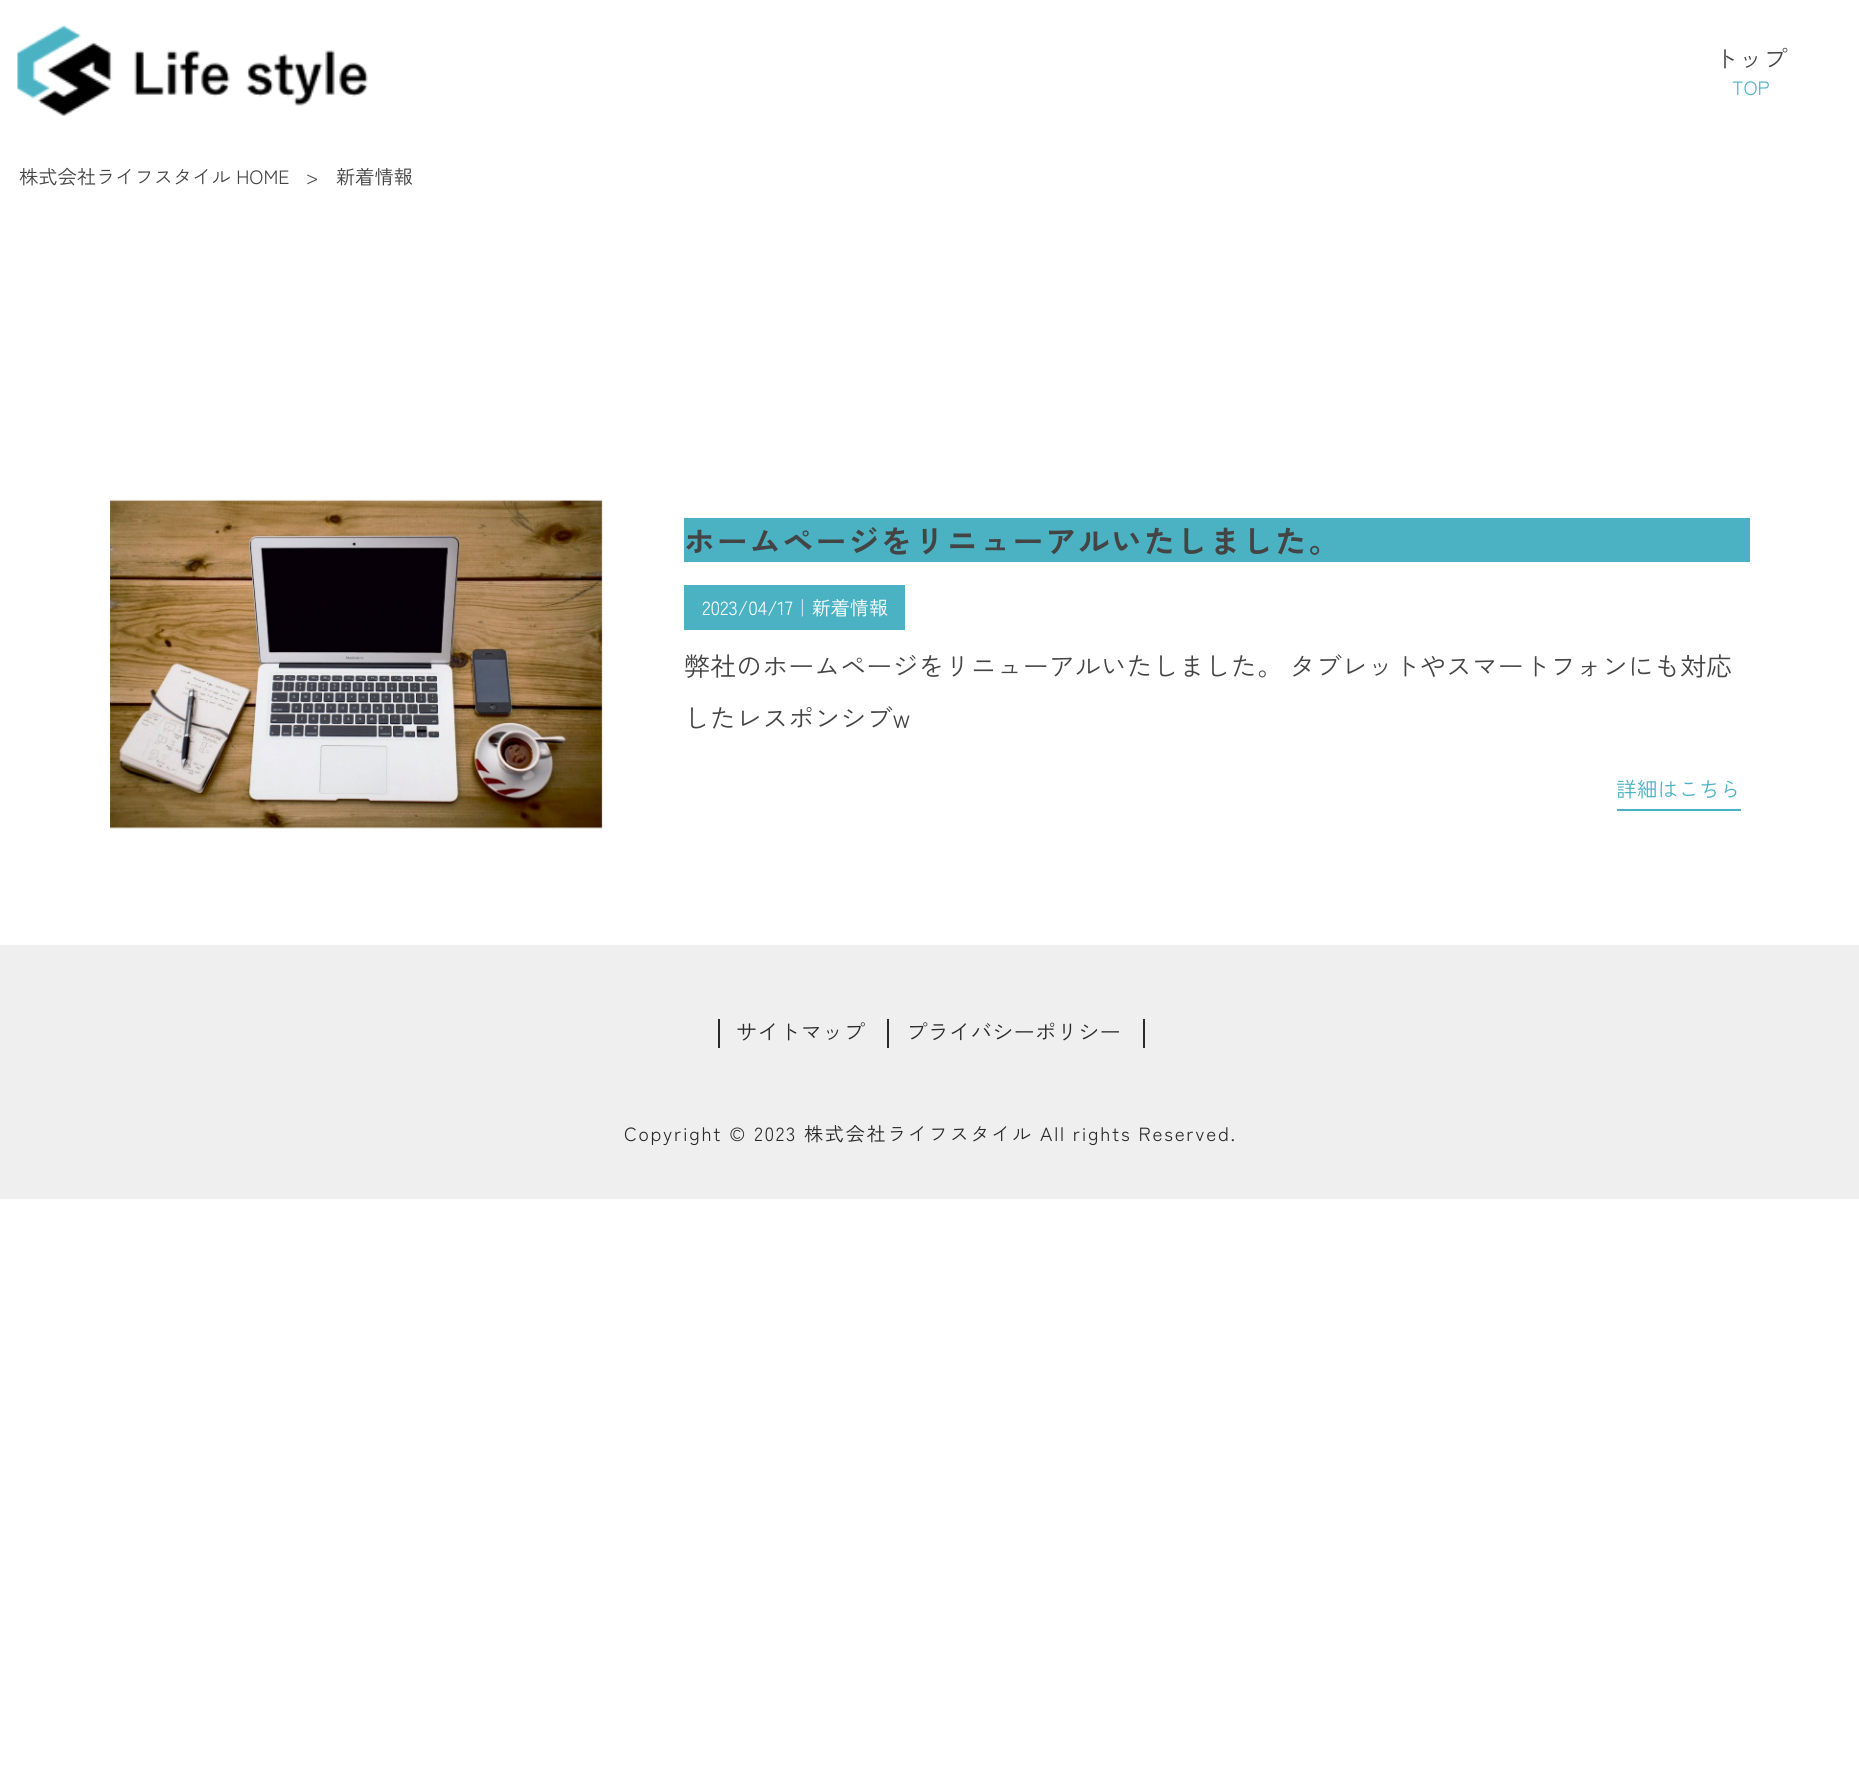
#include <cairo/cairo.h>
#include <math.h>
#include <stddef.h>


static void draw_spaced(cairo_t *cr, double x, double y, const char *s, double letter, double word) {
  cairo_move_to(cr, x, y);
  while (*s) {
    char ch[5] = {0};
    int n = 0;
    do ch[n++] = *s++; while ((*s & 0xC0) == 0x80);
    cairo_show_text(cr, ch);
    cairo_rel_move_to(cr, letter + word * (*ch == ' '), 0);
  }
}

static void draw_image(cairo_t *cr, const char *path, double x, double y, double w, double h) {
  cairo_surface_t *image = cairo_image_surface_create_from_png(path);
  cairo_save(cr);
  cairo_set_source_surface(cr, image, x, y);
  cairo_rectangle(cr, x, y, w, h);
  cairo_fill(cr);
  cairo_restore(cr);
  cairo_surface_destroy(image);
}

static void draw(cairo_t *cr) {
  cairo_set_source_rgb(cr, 1, 1, 1);
  cairo_paint(cr);
  draw_image(cr, "images/1.png", 17, 25, 351, 91);
  draw_image(cr, "images/2.png", 110, 499, 493, 330);
  cairo_set_source_rgb(cr, 75 / 255.0, 178 / 255.0, 196 / 255.0);
  cairo_rectangle(cr, 684, 518, 1066, 44);
  cairo_fill(cr);
  cairo_rectangle(cr, 684, 585, 221, 45);
  cairo_fill(cr);
  cairo_rectangle(cr, 1617, 809, 124, 2);
  cairo_fill(cr);
  cairo_set_source_rgb(cr, 239 / 255.0, 239 / 255.0, 239 / 255.0);
  cairo_rectangle(cr, 0, 945, 1859, 254);
  cairo_fill(cr);
  cairo_set_source_rgb(cr, 42 / 255.0, 42 / 255.0, 42 / 255.0);
  cairo_rectangle(cr, 718, 1019, 2, 29);
  cairo_fill(cr);
  cairo_rectangle(cr, 887, 1019, 2, 29);
  cairo_fill(cr);
  cairo_rectangle(cr, 1143, 1019, 2, 29);
  cairo_fill(cr);
  cairo_select_font_face(cr, "Zen Kaku Gothic New", CAIRO_FONT_SLANT_NORMAL, CAIRO_FONT_WEIGHT_NORMAL);
  cairo_set_font_size(cr, 24.5);
  cairo_set_source_rgb(cr, 68 / 255.0, 68 / 255.0, 68 / 255.0);
  cairo_move_to(cr, 1714, 68);
  cairo_show_text(cr, "トップ");
  cairo_set_font_size(cr, 19.25);
  cairo_set_source_rgb(cr, 75 / 255.0, 178 / 255.0, 196 / 255.0);
  cairo_move_to(cr, 1732, 95);
  cairo_show_text(cr, "TOP");
  cairo_set_source_rgb(cr, 68 / 255.0, 68 / 255.0, 68 / 255.0);
  cairo_move_to(cr, 19, 184);
  cairo_show_text(cr, "株式会社ライフスタイル HOME");
  cairo_move_to(cr, 306, 184);
  cairo_show_text(cr, ">");
  cairo_move_to(cr, 336, 184);
  cairo_show_text(cr, "新着情報");
  cairo_select_font_face(cr, "Zen Kaku Gothic New", CAIRO_FONT_SLANT_NORMAL, CAIRO_FONT_WEIGHT_BOLD);
  cairo_set_font_size(cr, 31.1);
  draw_spaced(cr, 684, 553, "ホームページをリニューアルいたしました。", 1.75, 0);
  cairo_select_font_face(cr, "Zen Kaku Gothic New", CAIRO_FONT_SLANT_NORMAL, CAIRO_FONT_WEIGHT_NORMAL);
  cairo_set_font_size(cr, 19.05);
  cairo_set_source_rgb(cr, 1, 1, 1);
  cairo_move_to(cr, 702, 615);
  cairo_show_text(cr, "2023/04/17｜新着情報");
  cairo_set_font_size(cr, 26.05);
  cairo_set_source_rgb(cr, 68 / 255.0, 68 / 255.0, 68 / 255.0);
  draw_spaced(cr, 684, 676, "弊社のホームページをリニューアルいたしました。 タブレットやスマートフォンにも対応", 0, -1);
  cairo_move_to(cr, 684, 728);
  cairo_show_text(cr, "したレスポンシブw");
  cairo_set_font_size(cr, 20.75);
  cairo_set_source_rgb(cr, 75 / 255.0, 178 / 255.0, 196 / 255.0);
  cairo_move_to(cr, 1616, 797);
  cairo_show_text(cr, "詳細はこちら");
  cairo_set_font_size(cr, 21.5);
  cairo_set_source_rgb(cr, 42 / 255.0, 42 / 255.0, 42 / 255.0);
  cairo_move_to(cr, 736, 1040);
  cairo_show_text(cr, "サイトマップ");
  cairo_move_to(cr, 906, 1040);
  cairo_show_text(cr, "プライバシーポリシー");
  cairo_set_font_size(cr, 19.05);
  draw_spaced(cr, 624, 1141, "Copyright © 2023 株式会社ライフスタイル All rights Reserved.", 1.75, 0);
}

int main(void) {
  cairo_surface_t *surface = cairo_image_surface_create(CAIRO_FORMAT_RGB24, 1859, 1767);
  cairo_t *cr = cairo_create(surface);
  cairo_font_options_t *options = cairo_font_options_create();
  cairo_font_options_set_hint_metrics(options, CAIRO_HINT_METRICS_OFF);
  cairo_font_options_set_hint_style(options, CAIRO_HINT_STYLE_NONE);
  cairo_set_font_options(cr, options);
  cairo_set_miter_limit(cr, 4);
  draw(cr);
  cairo_surface_write_to_png(surface, "out.png");
  cairo_font_options_destroy(options);
  cairo_destroy(cr);
  cairo_surface_destroy(surface);
  return 0;
}
